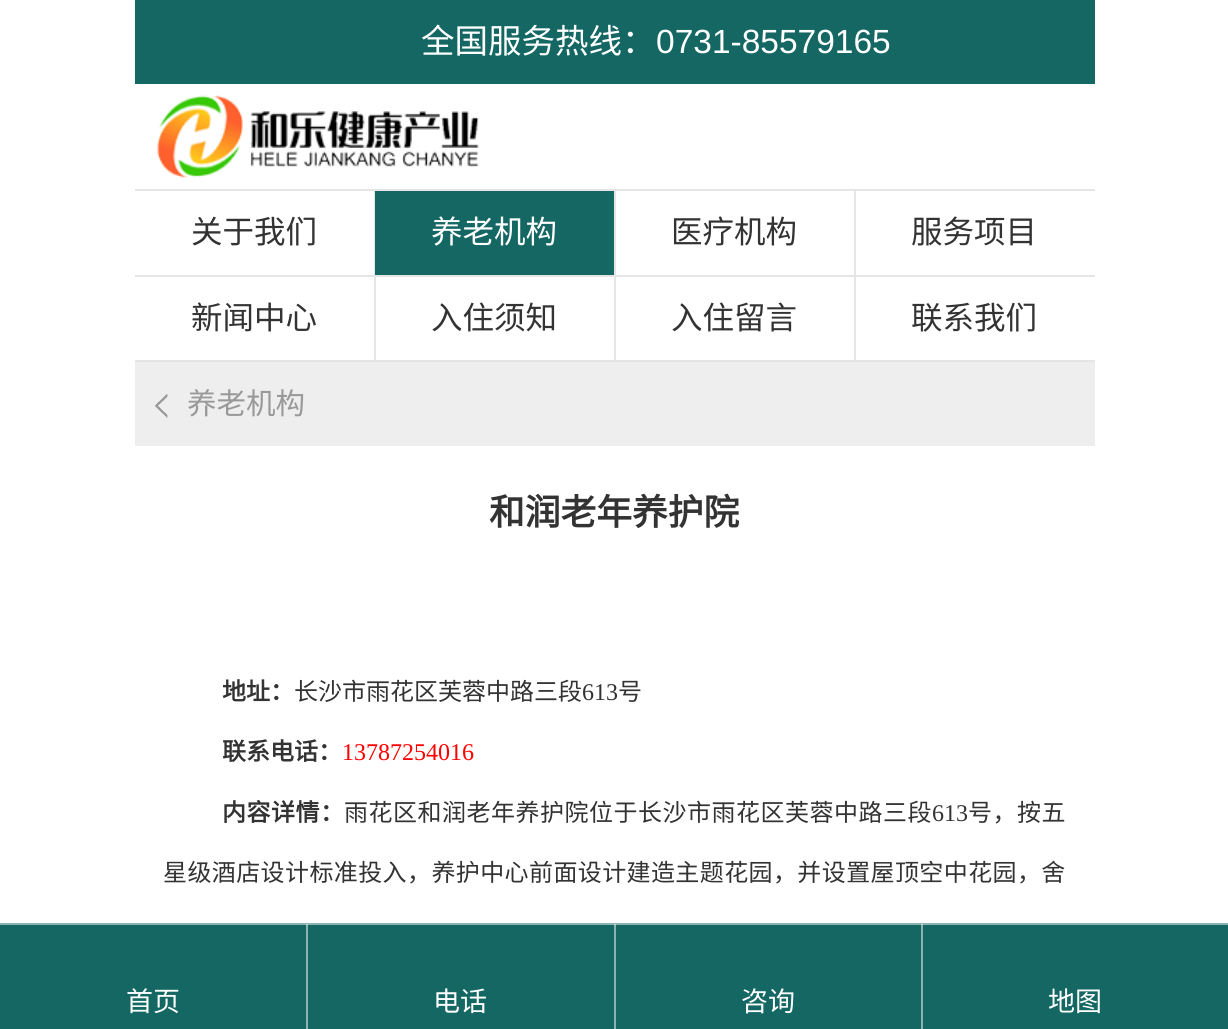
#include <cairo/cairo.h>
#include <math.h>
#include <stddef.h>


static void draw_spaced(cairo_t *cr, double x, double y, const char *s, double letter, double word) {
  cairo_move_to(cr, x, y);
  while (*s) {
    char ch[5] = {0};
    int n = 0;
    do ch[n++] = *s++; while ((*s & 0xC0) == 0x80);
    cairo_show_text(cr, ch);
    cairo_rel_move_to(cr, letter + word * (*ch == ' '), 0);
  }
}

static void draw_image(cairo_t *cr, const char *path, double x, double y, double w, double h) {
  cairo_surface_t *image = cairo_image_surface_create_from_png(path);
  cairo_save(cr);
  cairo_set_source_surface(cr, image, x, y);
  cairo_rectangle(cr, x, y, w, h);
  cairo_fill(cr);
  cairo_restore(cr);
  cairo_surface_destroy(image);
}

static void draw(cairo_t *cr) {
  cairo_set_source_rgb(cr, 1, 1, 1);
  cairo_paint(cr);
  cairo_set_source_rgb(cr, 20 / 255.0, 103 / 255.0, 99 / 255.0);
  cairo_rectangle(cr, 135, 0, 960, 84);
  cairo_fill(cr);
  draw_image(cr, "images/1.png", 157, 95, 322, 83);
  cairo_set_source_rgb(cr, 229 / 255.0, 229 / 255.0, 229 / 255.0);
  cairo_rectangle(cr, 135, 360, 960, 2);
  cairo_fill(cr);
  cairo_rectangle(cr, 135, 189, 480, 2);
  cairo_fill(cr);
  cairo_rectangle(cr, 374, 189, 1, 86);
  cairo_fill(cr);
  cairo_set_source_rgb(cr, 20 / 255.0, 103 / 255.0, 99 / 255.0);
  cairo_rectangle(cr, 375, 191, 239, 84);
  cairo_fill(cr);
  cairo_set_source_rgb(cr, 229 / 255.0, 229 / 255.0, 229 / 255.0);
  cairo_rectangle(cr, 614, 189, 2, 86);
  cairo_fill(cr);
  cairo_rectangle(cr, 615, 189, 240, 2);
  cairo_fill(cr);
  cairo_rectangle(cr, 854, 189, 2, 86);
  cairo_fill(cr);
  cairo_rectangle(cr, 855, 189, 240, 2);
  cairo_fill(cr);
  cairo_rectangle(cr, 135, 275, 240, 2);
  cairo_fill(cr);
  cairo_rectangle(cr, 374, 275, 2, 85);
  cairo_fill(cr);
  cairo_rectangle(cr, 375, 275, 240, 2);
  cairo_fill(cr);
  cairo_rectangle(cr, 614, 275, 2, 85);
  cairo_fill(cr);
  cairo_rectangle(cr, 615, 275, 240, 2);
  cairo_fill(cr);
  cairo_rectangle(cr, 854, 275, 2, 85);
  cairo_fill(cr);
  cairo_rectangle(cr, 855, 275, 240, 2);
  cairo_fill(cr);
  cairo_set_source_rgb(cr, 238 / 255.0, 238 / 255.0, 238 / 255.0);
  cairo_rectangle(cr, 135, 362, 960, 84);
  cairo_fill(cr);
  draw_image(cr, "images/2.png", 155, 394, 13, 24);
  cairo_set_source_rgb(cr, 20 / 255.0, 103 / 255.0, 99 / 255.0);
  cairo_rectangle(cr, 0, 925, 1228, 104);
  cairo_fill(cr);
  cairo_set_source_rgb(cr, 138 / 255.0, 179 / 255.0, 177 / 255.0);
  cairo_rectangle(cr, 0, 923, 1228, 2);
  cairo_fill(cr);
  cairo_set_source_rgba(cr, 1, 1, 1, 0.5);
  cairo_rectangle(cr, 306, 924, 2, 105);
  cairo_fill(cr);
  cairo_rectangle(cr, 614, 924, 2, 105);
  cairo_fill(cr);
  cairo_rectangle(cr, 921, 924, 2, 105);
  cairo_fill(cr);
  cairo_select_font_face(cr, "Noto Sans CJK SC", CAIRO_FONT_SLANT_NORMAL, CAIRO_FONT_WEIGHT_NORMAL);
  cairo_set_font_size(cr, 33.5);
  cairo_set_source_rgb(cr, 1, 1, 1);
  cairo_move_to(cr, 421, 53);
  cairo_show_text(cr, "全国服务热线：");
  cairo_select_font_face(cr, "Liberation Sans", CAIRO_FONT_SLANT_NORMAL, CAIRO_FONT_WEIGHT_NORMAL);
  cairo_move_to(cr, 656, 53);
  cairo_show_text(cr, "0731-85579165");
  cairo_select_font_face(cr, "Noto Sans CJK SC", CAIRO_FONT_SLANT_NORMAL, CAIRO_FONT_WEIGHT_NORMAL);
  cairo_set_font_size(cr, 31.5);
  cairo_set_source_rgb(cr, 51 / 255.0, 51 / 255.0, 51 / 255.0);
  cairo_move_to(cr, 191, 243);
  cairo_show_text(cr, "关于我们");
  cairo_set_source_rgb(cr, 1, 1, 1);
  cairo_move_to(cr, 431, 243);
  cairo_show_text(cr, "养老机构");
  cairo_set_source_rgb(cr, 51 / 255.0, 51 / 255.0, 51 / 255.0);
  cairo_move_to(cr, 671, 243);
  cairo_show_text(cr, "医疗机构");
  cairo_move_to(cr, 911, 243);
  cairo_show_text(cr, "服务项目");
  cairo_move_to(cr, 191, 329);
  cairo_show_text(cr, "新闻中心");
  cairo_move_to(cr, 431, 329);
  cairo_show_text(cr, "入住须知");
  cairo_move_to(cr, 671, 329);
  cairo_show_text(cr, "入住留言");
  cairo_move_to(cr, 911, 329);
  cairo_show_text(cr, "联系我们");
  cairo_set_font_size(cr, 29.5);
  cairo_set_source_rgb(cr, 153 / 255.0, 153 / 255.0, 153 / 255.0);
  cairo_move_to(cr, 187, 414);
  cairo_show_text(cr, "养老机构");
  cairo_select_font_face(cr, "Noto Sans CJK SC", CAIRO_FONT_SLANT_NORMAL, CAIRO_FONT_WEIGHT_BOLD);
  cairo_set_font_size(cr, 35.75);
  cairo_set_source_rgb(cr, 51 / 255.0, 51 / 255.0, 51 / 255.0);
  cairo_move_to(cr, 489, 525);
  cairo_show_text(cr, "和润老年养护院");
  cairo_set_font_size(cr, 24);
  cairo_move_to(cr, 222, 700);
  cairo_show_text(cr, "地址：");
  cairo_select_font_face(cr, "Noto Sans CJK SC", CAIRO_FONT_SLANT_NORMAL, CAIRO_FONT_WEIGHT_NORMAL);
  cairo_move_to(cr, 294, 700);
  cairo_show_text(cr, "长沙市雨花区芙蓉中路三段");
  cairo_select_font_face(cr, "Liberation Serif", CAIRO_FONT_SLANT_NORMAL, CAIRO_FONT_WEIGHT_NORMAL);
  cairo_move_to(cr, 582, 700);
  cairo_show_text(cr, "613");
  cairo_select_font_face(cr, "Noto Sans CJK SC", CAIRO_FONT_SLANT_NORMAL, CAIRO_FONT_WEIGHT_NORMAL);
  cairo_move_to(cr, 618, 700);
  cairo_show_text(cr, "号");
  cairo_select_font_face(cr, "Noto Sans CJK SC", CAIRO_FONT_SLANT_NORMAL, CAIRO_FONT_WEIGHT_BOLD);
  cairo_move_to(cr, 222, 760);
  cairo_show_text(cr, "联系电话：");
  cairo_select_font_face(cr, "Liberation Serif", CAIRO_FONT_SLANT_NORMAL, CAIRO_FONT_WEIGHT_NORMAL);
  cairo_set_source_rgb(cr, 1, 0, 0);
  cairo_move_to(cr, 342, 760);
  cairo_show_text(cr, "13787254016");
  cairo_select_font_face(cr, "Noto Sans CJK SC", CAIRO_FONT_SLANT_NORMAL, CAIRO_FONT_WEIGHT_BOLD);
  cairo_set_source_rgb(cr, 51 / 255.0, 51 / 255.0, 51 / 255.0);
  draw_spaced(cr, 222, 821, "内容详情：", 0.5, 0);
  cairo_select_font_face(cr, "Noto Sans CJK SC", CAIRO_FONT_SLANT_NORMAL, CAIRO_FONT_WEIGHT_NORMAL);
  draw_spaced(cr, 344, 821, "雨花区和润老年养护院位于长沙市雨花区芙蓉中路三段", 0.5, 0);
  cairo_select_font_face(cr, "Liberation Serif", CAIRO_FONT_SLANT_NORMAL, CAIRO_FONT_WEIGHT_NORMAL);
  cairo_move_to(cr, 932, 821);
  cairo_show_text(cr, "613");
  cairo_select_font_face(cr, "Noto Sans CJK SC", CAIRO_FONT_SLANT_NORMAL, CAIRO_FONT_WEIGHT_NORMAL);
  draw_spaced(cr, 968, 821, "号，按五", 0.5, 0);
  draw_spaced(cr, 163, 881, "星级酒店设计标准投入，养护中心前面设计建造主题花园，并设置屋顶空中花园，舍", 0.4, 0);
  cairo_set_font_size(cr, 27);
  cairo_set_source_rgb(cr, 1, 1, 1);
  cairo_move_to(cr, 126, 1011);
  cairo_show_text(cr, "首页");
  cairo_move_to(cr, 433, 1011);
  cairo_show_text(cr, "电话");
  cairo_move_to(cr, 741, 1011);
  cairo_show_text(cr, "咨询");
  cairo_move_to(cr, 1048, 1011);
  cairo_show_text(cr, "地图");
}

int main(void) {
  cairo_surface_t *surface = cairo_image_surface_create(CAIRO_FORMAT_RGB24, 1228, 1029);
  cairo_t *cr = cairo_create(surface);
  cairo_font_options_t *options = cairo_font_options_create();
  cairo_font_options_set_hint_metrics(options, CAIRO_HINT_METRICS_OFF);
  cairo_font_options_set_hint_style(options, CAIRO_HINT_STYLE_NONE);
  cairo_set_font_options(cr, options);
  cairo_set_miter_limit(cr, 4);
  draw(cr);
  cairo_surface_write_to_png(surface, "out.png");
  cairo_font_options_destroy(options);
  cairo_destroy(cr);
  cairo_surface_destroy(surface);
  return 0;
}
